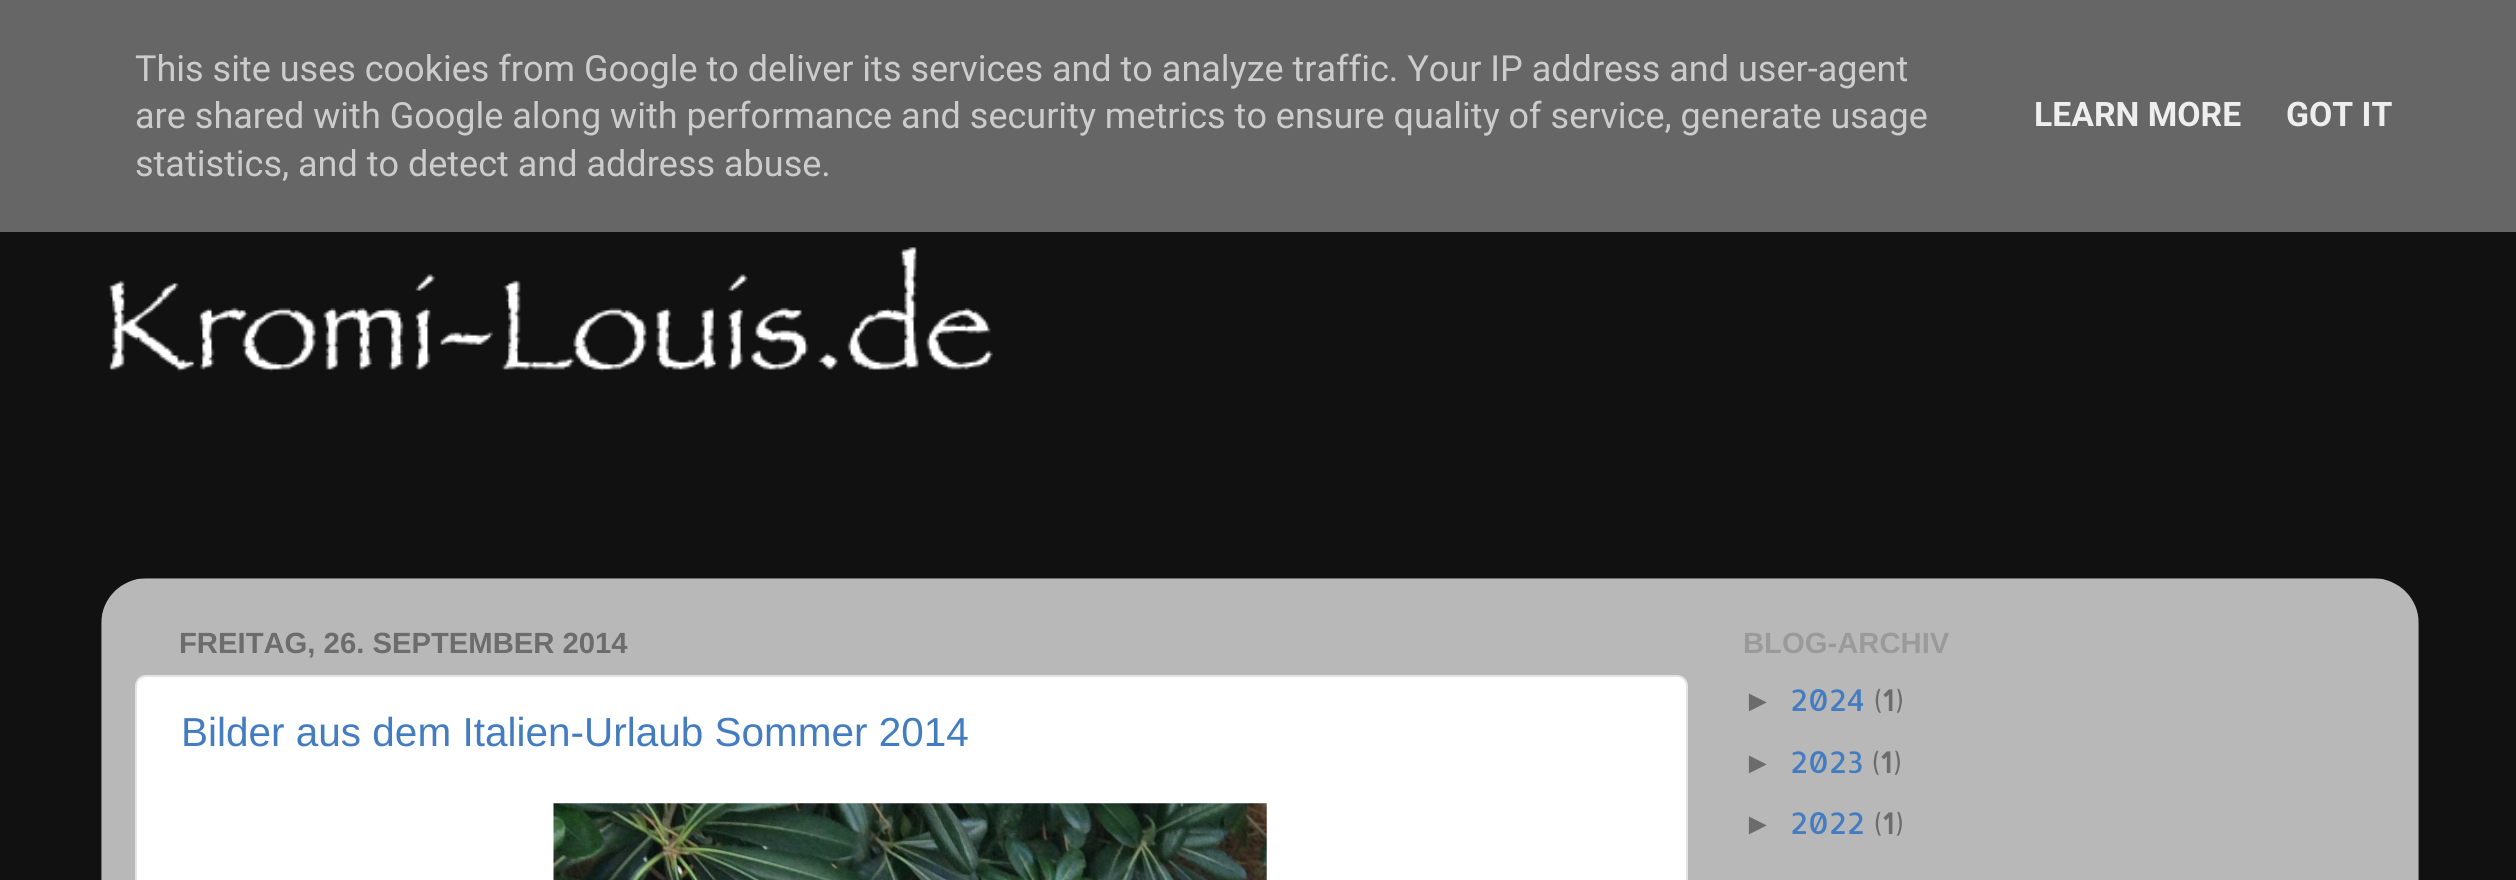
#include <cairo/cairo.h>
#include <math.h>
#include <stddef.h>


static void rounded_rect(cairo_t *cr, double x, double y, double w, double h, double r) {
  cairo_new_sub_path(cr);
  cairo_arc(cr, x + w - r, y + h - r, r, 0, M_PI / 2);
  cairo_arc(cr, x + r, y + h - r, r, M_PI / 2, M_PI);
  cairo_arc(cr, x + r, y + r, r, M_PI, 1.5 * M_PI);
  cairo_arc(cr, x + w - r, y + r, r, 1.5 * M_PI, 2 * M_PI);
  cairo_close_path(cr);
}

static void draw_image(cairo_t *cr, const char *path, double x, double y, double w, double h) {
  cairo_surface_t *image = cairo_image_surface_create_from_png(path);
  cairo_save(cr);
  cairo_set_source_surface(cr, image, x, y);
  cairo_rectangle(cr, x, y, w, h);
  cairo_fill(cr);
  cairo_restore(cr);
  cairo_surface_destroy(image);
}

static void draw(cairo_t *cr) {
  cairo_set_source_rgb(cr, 17 / 255.0, 17 / 255.0, 17 / 255.0);
  cairo_paint(cr);
  cairo_set_source_rgb(cr, 102 / 255.0, 102 / 255.0, 102 / 255.0);
  cairo_rectangle(cr, 0, 0, 2516, 232);
  cairo_fill(cr);
  draw_image(cr, "images/1.png", 108, 247, 885, 125);
  draw_image(cr, "images/2.png", 101, 578, 2318, 302);
  cairo_set_source_rgb(cr, 1, 1, 1);
  rounded_rect(cr, 136, 676, 1551, 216, 10);
  cairo_fill_preserve(cr);
  cairo_set_source_rgb(cr, 228 / 255.0, 228 / 255.0, 228 / 255.0);
  cairo_stroke(cr);
  draw_image(cr, "images/3.png", 553, 803, 714, 77);
  cairo_select_font_face(cr, "Roboto", CAIRO_FONT_SLANT_NORMAL, CAIRO_FONT_WEIGHT_NORMAL);
  cairo_set_font_size(cr, 36);
  cairo_set_source_rgb(cr, 204 / 255.0, 204 / 255.0, 204 / 255.0);
  cairo_move_to(cr, 135, 81);
  cairo_show_text(cr, "This site uses cookies from Google to deliver its services and to analyze traffic. Your IP address and user-agent");
  cairo_move_to(cr, 135, 128);
  cairo_show_text(cr, "are shared with Google along with performance and security metrics to ensure quality of service, generate usage");
  cairo_move_to(cr, 135, 176);
  cairo_show_text(cr, "statistics, and to detect and address abuse.");
  cairo_select_font_face(cr, "Roboto", CAIRO_FONT_SLANT_NORMAL, CAIRO_FONT_WEIGHT_BOLD);
  cairo_set_font_size(cr, 33.75);
  cairo_set_source_rgb(cr, 238 / 255.0, 238 / 255.0, 238 / 255.0);
  cairo_move_to(cr, 2034, 126);
  cairo_show_text(cr, "LEARN MORE");
  cairo_move_to(cr, 2286, 126);
  cairo_show_text(cr, "GOT IT");
  cairo_select_font_face(cr, "Liberation Sans", CAIRO_FONT_SLANT_NORMAL, CAIRO_FONT_WEIGHT_BOLD);
  cairo_set_font_size(cr, 29.25);
  cairo_set_source_rgb(cr, 108 / 255.0, 108 / 255.0, 108 / 255.0);
  cairo_move_to(cr, 179, 653);
  cairo_show_text(cr, "FREITAG, 26. SEPTEMBER 2014");
  cairo_select_font_face(cr, "Liberation Sans", CAIRO_FONT_SLANT_NORMAL, CAIRO_FONT_WEIGHT_NORMAL);
  cairo_set_font_size(cr, 40.5);
  cairo_set_source_rgb(cr, 67 / 255.0, 124 / 255.0, 192 / 255.0);
  cairo_move_to(cr, 181, 746);
  cairo_show_text(cr, "Bilder aus dem Italien-Urlaub Sommer 2014");
  cairo_select_font_face(cr, "Liberation Sans", CAIRO_FONT_SLANT_NORMAL, CAIRO_FONT_WEIGHT_BOLD);
  cairo_set_font_size(cr, 29.25);
  cairo_set_source_rgb(cr, 154 / 255.0, 154 / 255.0, 154 / 255.0);
  cairo_move_to(cr, 1743, 653);
  cairo_show_text(cr, "BLOG-ARCHIV");
  cairo_select_font_face(cr, "Liberation Sans", CAIRO_FONT_SLANT_NORMAL, CAIRO_FONT_WEIGHT_NORMAL);
  cairo_set_font_size(cr, 30);
  cairo_set_source_rgb(cr, 108 / 255.0, 108 / 255.0, 108 / 255.0);
  cairo_move_to(cr, 1743, 711);
  cairo_show_text(cr, "►");
  cairo_select_font_face(cr, "Allerta", CAIRO_FONT_SLANT_NORMAL, CAIRO_FONT_WEIGHT_NORMAL);
  cairo_set_source_rgb(cr, 67 / 255.0, 124 / 255.0, 192 / 255.0);
  cairo_move_to(cr, 1790, 711);
  cairo_show_text(cr, "2024");
  cairo_set_source_rgb(cr, 108 / 255.0, 108 / 255.0, 108 / 255.0);
  cairo_move_to(cr, 1874, 711);
  cairo_show_text(cr, "(1)");
  cairo_select_font_face(cr, "Liberation Sans", CAIRO_FONT_SLANT_NORMAL, CAIRO_FONT_WEIGHT_NORMAL);
  cairo_move_to(cr, 1743, 773);
  cairo_show_text(cr, "►");
  cairo_select_font_face(cr, "Allerta", CAIRO_FONT_SLANT_NORMAL, CAIRO_FONT_WEIGHT_NORMAL);
  cairo_set_source_rgb(cr, 67 / 255.0, 124 / 255.0, 192 / 255.0);
  cairo_move_to(cr, 1790, 773);
  cairo_show_text(cr, "2023");
  cairo_set_source_rgb(cr, 108 / 255.0, 108 / 255.0, 108 / 255.0);
  cairo_move_to(cr, 1872, 773);
  cairo_show_text(cr, "(1)");
  cairo_select_font_face(cr, "Liberation Sans", CAIRO_FONT_SLANT_NORMAL, CAIRO_FONT_WEIGHT_NORMAL);
  cairo_move_to(cr, 1743, 834);
  cairo_show_text(cr, "►");
  cairo_select_font_face(cr, "Allerta", CAIRO_FONT_SLANT_NORMAL, CAIRO_FONT_WEIGHT_NORMAL);
  cairo_set_source_rgb(cr, 67 / 255.0, 124 / 255.0, 192 / 255.0);
  cairo_move_to(cr, 1790, 834);
  cairo_show_text(cr, "2022");
  cairo_set_source_rgb(cr, 108 / 255.0, 108 / 255.0, 108 / 255.0);
  cairo_move_to(cr, 1874, 834);
  cairo_show_text(cr, "(1)");
}

int main(void) {
  cairo_surface_t *surface = cairo_image_surface_create(CAIRO_FORMAT_RGB24, 2516, 880);
  cairo_t *cr = cairo_create(surface);
  cairo_font_options_t *options = cairo_font_options_create();
  cairo_font_options_set_hint_metrics(options, CAIRO_HINT_METRICS_OFF);
  cairo_font_options_set_hint_style(options, CAIRO_HINT_STYLE_NONE);
  cairo_set_font_options(cr, options);
  cairo_set_miter_limit(cr, 4);
  draw(cr);
  cairo_surface_write_to_png(surface, "out.png");
  cairo_font_options_destroy(options);
  cairo_destroy(cr);
  cairo_surface_destroy(surface);
  return 0;
}
